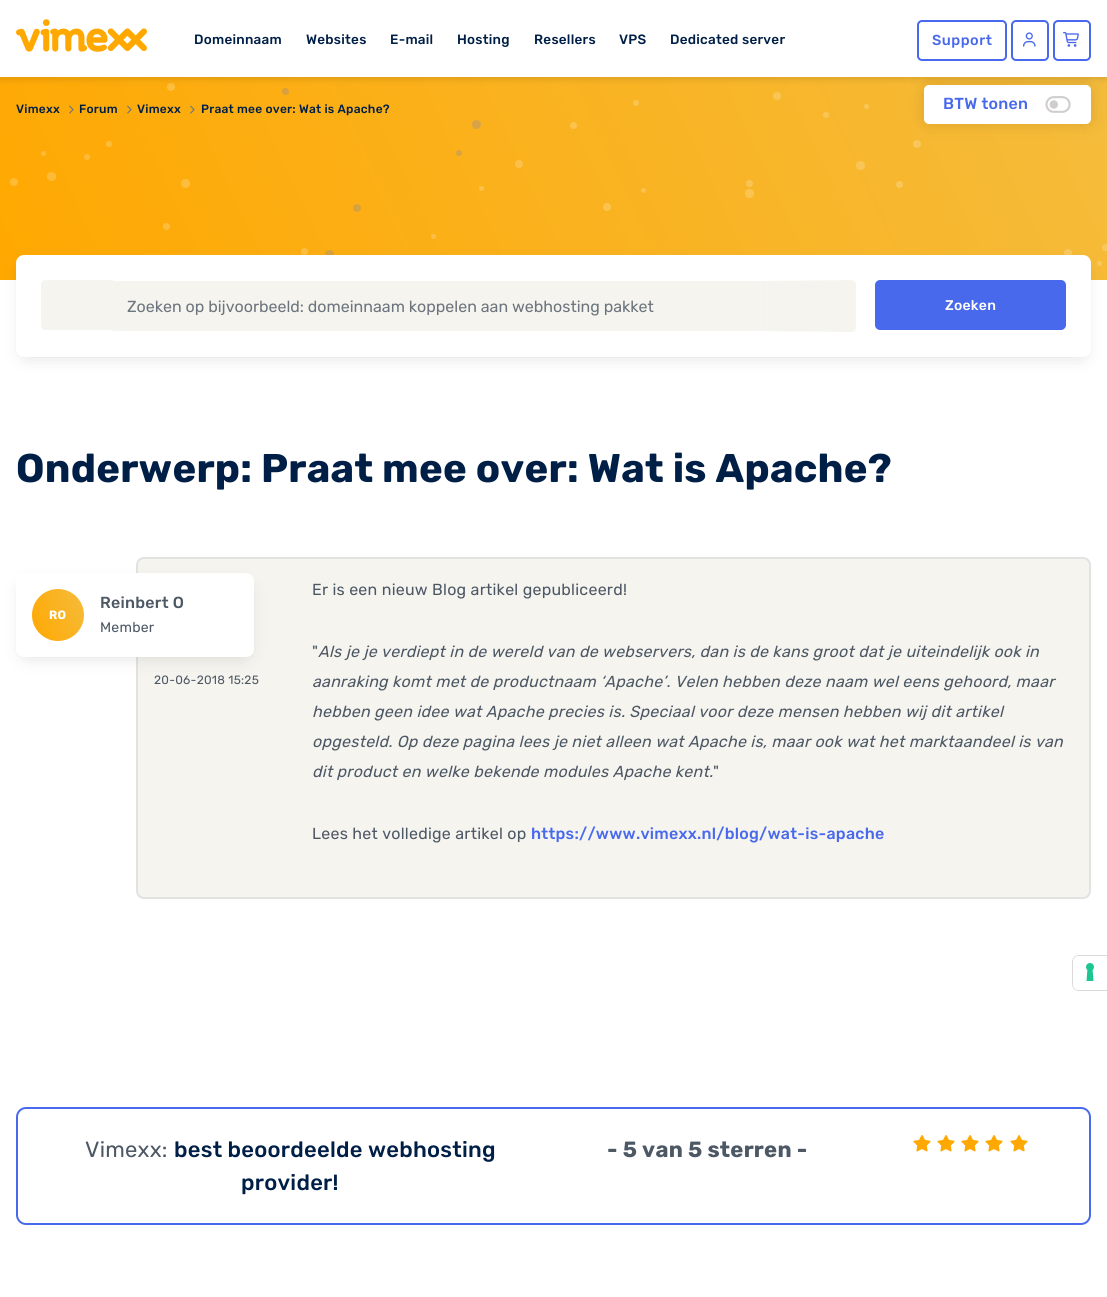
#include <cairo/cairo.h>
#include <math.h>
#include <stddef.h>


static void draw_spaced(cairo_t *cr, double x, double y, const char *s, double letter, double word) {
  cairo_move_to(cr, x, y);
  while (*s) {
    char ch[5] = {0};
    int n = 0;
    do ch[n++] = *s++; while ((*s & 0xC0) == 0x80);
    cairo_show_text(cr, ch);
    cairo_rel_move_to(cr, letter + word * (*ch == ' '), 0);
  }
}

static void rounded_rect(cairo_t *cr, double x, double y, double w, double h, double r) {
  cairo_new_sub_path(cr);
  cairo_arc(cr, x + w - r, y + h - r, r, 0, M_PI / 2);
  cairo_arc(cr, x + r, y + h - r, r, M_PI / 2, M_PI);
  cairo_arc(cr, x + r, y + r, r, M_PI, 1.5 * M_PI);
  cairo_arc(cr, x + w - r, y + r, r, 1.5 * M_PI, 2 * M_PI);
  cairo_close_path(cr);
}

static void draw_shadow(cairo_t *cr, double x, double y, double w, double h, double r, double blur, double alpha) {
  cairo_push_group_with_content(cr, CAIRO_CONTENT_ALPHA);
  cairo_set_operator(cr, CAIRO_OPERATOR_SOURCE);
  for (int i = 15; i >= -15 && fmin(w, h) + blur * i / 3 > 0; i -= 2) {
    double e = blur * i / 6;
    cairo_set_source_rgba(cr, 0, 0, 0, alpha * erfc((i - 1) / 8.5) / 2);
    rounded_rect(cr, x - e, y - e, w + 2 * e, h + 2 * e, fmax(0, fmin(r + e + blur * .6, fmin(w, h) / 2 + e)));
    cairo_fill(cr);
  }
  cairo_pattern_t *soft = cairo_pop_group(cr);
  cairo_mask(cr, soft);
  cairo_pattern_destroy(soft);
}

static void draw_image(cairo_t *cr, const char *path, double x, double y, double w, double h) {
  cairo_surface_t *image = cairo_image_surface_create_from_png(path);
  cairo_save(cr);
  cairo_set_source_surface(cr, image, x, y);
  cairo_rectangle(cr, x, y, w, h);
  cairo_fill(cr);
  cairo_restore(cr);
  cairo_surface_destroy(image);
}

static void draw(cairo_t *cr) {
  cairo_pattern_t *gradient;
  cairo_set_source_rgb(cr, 1, 1, 1);
  cairo_paint(cr);
  gradient = cairo_pattern_create_linear(56, 400, 1051, -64);
  cairo_pattern_add_color_stop_rgba(gradient, 0, 1, 168 / 255.0, 1 / 255.0, 1);
  cairo_pattern_add_color_stop_rgba(gradient, 1, 245 / 255.0, 188 / 255.0, 60 / 255.0, 1);
  cairo_set_source(cr, gradient);
  cairo_pattern_destroy(gradient);
  cairo_rectangle(cr, 0, 77, 1107, 203);
  cairo_fill(cr);
  cairo_set_source_rgb(cr, 249 / 255.0, 198 / 255.0, 90 / 255.0);
  cairo_arc(cr, 917, 144, 4, 0, 2 * M_PI);
  cairo_fill(cr);
  cairo_set_source_rgb(cr, 10 / 255.0, 5 / 255.0, 0);
  draw_shadow(cr, 929, 90, 157, 29, 0, 10, 0.2);
  cairo_set_source_rgb(cr, 1, 1, 1);
  rounded_rect(cr, 924, 85, 167, 39, 5);
  cairo_fill(cr);
  cairo_set_source_rgb(cr, 253 / 255.0, 189 / 255.0, 62 / 255.0);
  cairo_arc(cr, 171, 87, 4, 0, 2 * M_PI);
  cairo_fill(cr);
  cairo_set_source_rgb(cr, 216 / 255.0, 160 / 255.0, 63 / 255.0);
  cairo_arc(cr, 285.5, 91.5, 3.5, 0, 2 * M_PI);
  cairo_fill(cr);
  cairo_set_source_rgb(cr, 0, 0, 0);
  draw_shadow(cr, 0, 3, 1107, 77, 0, 3, 0.1);
  cairo_set_source_rgb(cr, 1, 1, 1);
  cairo_rectangle(cr, 0, 0, 1107, 77);
  cairo_fill(cr);
  draw_image(cr, "images/1.png", 16, 19, 131, 33);
  rounded_rect(cr, 918, 21, 88, 39, 4);
  cairo_set_source_rgb(cr, 73 / 255.0, 105 / 255.0, 237 / 255.0);
  cairo_stroke(cr);
  rounded_rect(cr, 1012, 21, 36, 39, 4);
  cairo_stroke(cr);
  draw_image(cr, "images/2.png", 1023, 32, 13, 15);
  rounded_rect(cr, 1054, 21, 36, 39, 4);
  cairo_stroke(cr);
  draw_image(cr, "images/3.png", 1063, 31, 16, 16);
  draw_image(cr, "images/4.png", 1045, 96, 26, 17);
  cairo_set_source_rgb(cr, 249 / 255.0, 197 / 255.0, 85 / 255.0);
  cairo_arc(cr, 777, 96, 4, 0, 2 * M_PI);
  cairo_fill(cr);
  cairo_set_source_rgb(cr, 250 / 255.0, 195 / 255.0, 80 / 255.0);
  cairo_arc(cr, 636, 103, 3, 0, 2 * M_PI);
  cairo_fill(cr);
  draw_image(cr, "images/5.png", 69, 105, 5, 9);
  draw_image(cr, "images/6.png", 127, 105, 5, 9);
  draw_image(cr, "images/7.png", 190, 105, 5, 9);
  cairo_set_source_rgb(cr, 249 / 255.0, 198 / 255.0, 89 / 255.0);
  cairo_arc(cr, 866.5, 106.5, 2.5, 0, 2 * M_PI);
  cairo_fill(cr);
  cairo_set_source_rgb(cr, 249 / 255.0, 197 / 255.0, 87 / 255.0);
  cairo_arc(cr, 826, 115, 3, 0, 2 * M_PI);
  cairo_fill(cr);
  cairo_set_source_rgb(cr, 215 / 255.0, 163 / 255.0, 70 / 255.0);
  cairo_arc(cr, 476.5, 124.5, 4.5, 0, 2 * M_PI);
  cairo_fill(cr);
  cairo_set_source_rgb(cr, 251 / 255.0, 194 / 255.0, 77 / 255.0);
  cairo_arc(cr, 573.5, 125.5, 3.5, 0, 2 * M_PI);
  cairo_fill(cr);
  cairo_set_source_rgb(cr, 254 / 255.0, 188 / 255.0, 58 / 255.0);
  cairo_arc(cr, 109, 144, 3, 0, 2 * M_PI);
  cairo_fill(cr);
  cairo_set_source_rgb(cr, 254 / 255.0, 187 / 255.0, 56 / 255.0);
  cairo_arc(cr, 43.5, 153.5, 2.5, 0, 2 * M_PI);
  cairo_fill(cr);
  cairo_set_source_rgb(cr, 215 / 255.0, 163 / 255.0, 68 / 255.0);
  cairo_arc(cr, 459, 153, 3, 0, 2 * M_PI);
  cairo_fill(cr);
  cairo_set_source_rgb(cr, 254 / 255.0, 187 / 255.0, 57 / 255.0);
  cairo_arc(cr, 87, 157, 3, 0, 2 * M_PI);
  cairo_fill(cr);
  cairo_set_source_rgb(cr, 251 / 255.0, 193 / 255.0, 74 / 255.0);
  cairo_arc(cr, 519, 164, 4, 0, 2 * M_PI);
  cairo_fill(cr);
  cairo_set_source_rgb(cr, 249 / 255.0, 197 / 255.0, 87 / 255.0);
  cairo_arc(cr, 860.5, 165.5, 4.5, 0, 2 * M_PI);
  cairo_fill(cr);
  cairo_set_source_rgb(cr, 254 / 255.0, 187 / 255.0, 56 / 255.0);
  cairo_arc(cr, 51.5, 176.5, 4.5, 0, 2 * M_PI);
  cairo_fill(cr);
  cairo_set_source_rgb(cr, 1, 186 / 255.0, 54 / 255.0);
  cairo_arc(cr, 14, 182, 4, 0, 2 * M_PI);
  cairo_fill(cr);
  cairo_set_source_rgb(cr, 253 / 255.0, 189 / 255.0, 61 / 255.0);
  cairo_arc(cr, 185.5, 183.5, 4.5, 0, 2 * M_PI);
  cairo_fill(cr);
  cairo_set_source_rgb(cr, 249 / 255.0, 196 / 255.0, 83 / 255.0);
  cairo_arc(cr, 749.5, 183.5, 3.5, 0, 2 * M_PI);
  cairo_fill(cr);
  cairo_set_source_rgb(cr, 249 / 255.0, 198 / 255.0, 89 / 255.0);
  cairo_arc(cr, 899.5, 184.5, 3.5, 0, 2 * M_PI);
  cairo_fill(cr);
  cairo_set_source_rgb(cr, 252 / 255.0, 193 / 255.0, 72 / 255.0);
  cairo_arc(cr, 481.5, 188.5, 2.5, 0, 2 * M_PI);
  cairo_fill(cr);
  cairo_set_source_rgb(cr, 250 / 255.0, 194 / 255.0, 78 / 255.0);
  cairo_arc(cr, 643.5, 190.5, 2.5, 0, 2 * M_PI);
  cairo_fill(cr);
  cairo_set_source_rgb(cr, 250 / 255.0, 196 / 255.0, 83 / 255.0);
  cairo_arc(cr, 749.5, 193.5, 4.5, 0, 2 * M_PI);
  cairo_fill(cr);
  cairo_set_source_rgb(cr, 216 / 255.0, 160 / 255.0, 63 / 255.0);
  cairo_arc(cr, 357, 208, 4, 0, 2 * M_PI);
  cairo_fill(cr);
  cairo_set_source_rgb(cr, 251 / 255.0, 194 / 255.0, 77 / 255.0);
  cairo_arc(cr, 607, 207, 4, 0, 2 * M_PI);
  cairo_fill(cr);
  cairo_set_source_rgb(cr, 253 / 255.0, 188 / 255.0, 59 / 255.0);
  cairo_arc(cr, 166.5, 226.5, 3.5, 0, 2 * M_PI);
  cairo_fill(cr);
  cairo_set_source_rgb(cr, 252 / 255.0, 191 / 255.0, 69 / 255.0);
  cairo_arc(cr, 433.5, 236.5, 2.5, 0, 2 * M_PI);
  cairo_fill(cr);
  cairo_set_source_rgb(cr, 253 / 255.0, 189 / 255.0, 64 / 255.0);
  cairo_arc(cr, 304.5, 251.5, 3.5, 0, 2 * M_PI);
  cairo_fill(cr);
  cairo_set_source_rgb(cr, 216 / 255.0, 160 / 255.0, 62 / 255.0);
  cairo_arc(cr, 329.5, 254.5, 4.5, 0, 2 * M_PI);
  cairo_fill(cr);
  cairo_set_source_rgb(cr, 248 / 255.0, 200 / 255.0, 94 / 255.0);
  cairo_arc(cr, 1068, 253, 4, 0, 2 * M_PI);
  cairo_fill(cr);
  cairo_set_source_rgb(cr, 248 / 255.0, 200 / 255.0, 96 / 255.0);
  cairo_arc(cr, 1105.5, 247.5, 3.5, 0, 2 * M_PI);
  cairo_fill(cr);
  cairo_set_source_rgb(cr, 248 / 255.0, 200 / 255.0, 95 / 255.0);
  cairo_arc(cr, 1099.5, 263.5, 2.5, 0, 2 * M_PI);
  cairo_fill(cr);
  cairo_set_source_rgb(cr, 0, 0, 0);
  draw_shadow(cr, 26, 271, 1055, 82, 0, 10, 0.2);
  cairo_set_source_rgb(cr, 1, 1, 1);
  rounded_rect(cr, 16, 255, 1075, 102, 8);
  cairo_fill(cr);
  cairo_set_source_rgb(cr, 245 / 255.0, 244 / 255.0, 239 / 255.0);
  cairo_new_path(cr);
  cairo_move_to(cr, 46, 280);
  cairo_line_to(cr, 113, 280);
  cairo_line_to(cr, 113, 330);
  cairo_line_to(cr, 46, 330);
  cairo_curve_to(cr, 43, 330, 41, 328, 41, 325);
  cairo_line_to(cr, 41, 285);
  cairo_curve_to(cr, 41, 282, 43, 280, 46, 280);
  cairo_close_path(cr);
  cairo_fill(cr);
  cairo_new_path(cr);
  cairo_move_to(cr, 113.5, 281.5);
  cairo_line_to(cr, 851, 281.5);
  cairo_curve_to(cr, 853.5, 281.5, 855.5, 283.5, 855.5, 286);
  cairo_line_to(cr, 855.5, 326);
  cairo_curve_to(cr, 855.5, 328.5, 853.5, 330.5, 851, 330.5);
  cairo_line_to(cr, 113.5, 330.5);
  cairo_close_path(cr);
  cairo_fill_preserve(cr);
  cairo_set_line_width(cr, 1);
  cairo_stroke(cr);
  gradient = cairo_pattern_create_linear(761, 306, 856, 306);
  cairo_pattern_add_color_stop_rgba(gradient, 0, 245 / 255.0, 244 / 255.0, 239 / 255.0, 0);
  cairo_pattern_add_color_stop_rgba(gradient, 1, 245 / 255.0, 244 / 255.0, 239 / 255.0, 1);
  cairo_set_source(cr, gradient);
  cairo_pattern_destroy(gradient);
  cairo_new_path(cr);
  cairo_move_to(cr, 761, 280);
  cairo_line_to(cr, 851, 280);
  cairo_curve_to(cr, 854, 280, 856, 282, 856, 285);
  cairo_line_to(cr, 856, 327);
  cairo_curve_to(cr, 856, 330, 854, 332, 851, 332);
  cairo_line_to(cr, 761, 332);
  cairo_close_path(cr);
  cairo_fill(cr);
  cairo_set_source_rgb(cr, 73 / 255.0, 105 / 255.0, 237 / 255.0);
  rounded_rect(cr, 876, 281, 189, 48, 4);
  cairo_fill_preserve(cr);
  cairo_set_line_width(cr, 2);
  cairo_stroke(cr);
  cairo_set_source_rgb(cr, 245 / 255.0, 244 / 255.0, 239 / 255.0);
  rounded_rect(cr, 137, 558, 953, 340, 7);
  cairo_fill_preserve(cr);
  cairo_set_source_rgb(cr, 226 / 255.0, 226 / 255.0, 226 / 255.0);
  cairo_stroke(cr);
  cairo_set_source_rgb(cr, 0, 0, 0);
  draw_shadow(cr, 26, 589, 218, 64, 0, 10, 0.2);
  cairo_set_source_rgb(cr, 1, 1, 1);
  rounded_rect(cr, 16, 573, 238, 84, 8);
  cairo_fill(cr);
  gradient = cairo_pattern_create_linear(27, 630, 89, 600);
  cairo_pattern_add_color_stop_rgba(gradient, 0, 1, 168 / 255.0, 1 / 255.0, 1);
  cairo_pattern_add_color_stop_rgba(gradient, 1, 245 / 255.0, 188 / 255.0, 60 / 255.0, 1);
  cairo_set_source(cr, gradient);
  cairo_pattern_destroy(gradient);
  cairo_arc(cr, 58, 615, 26, 0, 2 * M_PI);
  cairo_fill(cr);
  rounded_rect(cr, 17, 1108, 1073, 116, 9);
  cairo_set_source_rgb(cr, 73 / 255.0, 105 / 255.0, 237 / 255.0);
  cairo_stroke(cr);
  draw_image(cr, "images/8.png", 913, 1135, 18, 17);
  draw_image(cr, "images/8.png", 937, 1135, 18, 17);
  draw_image(cr, "images/8.png", 961, 1135, 18, 17);
  draw_image(cr, "images/8.png", 985, 1135, 18, 17);
  draw_image(cr, "images/8.png", 1010, 1135, 18, 17);
  cairo_new_path(cr);
  cairo_move_to(cr, 1079, 955.5);
  cairo_line_to(cr, 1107.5, 955.5);
  cairo_line_to(cr, 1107.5, 990.5);
  cairo_line_to(cr, 1079, 990.5);
  cairo_curve_to(cr, 1075.5, 990.5, 1072.5, 987.5, 1072.5, 984);
  cairo_line_to(cr, 1072.5, 962);
  cairo_curve_to(cr, 1072.5, 958.5, 1075.5, 955.5, 1079, 955.5);
  cairo_close_path(cr);
  cairo_set_source_rgb(cr, 217 / 255.0, 217 / 255.0, 217 / 255.0);
  cairo_set_line_width(cr, 1);
  cairo_stroke(cr);
  cairo_set_source_rgb(cr, 1, 1, 1);
  cairo_new_path(cr);
  cairo_move_to(cr, 1079, 956);
  cairo_line_to(cr, 1107, 956);
  cairo_line_to(cr, 1107, 990);
  cairo_line_to(cr, 1079, 990);
  cairo_curve_to(cr, 1075.5, 990, 1073, 987.5, 1073, 984);
  cairo_line_to(cr, 1073, 962);
  cairo_curve_to(cr, 1073, 958.5, 1075.5, 956, 1079, 956);
  cairo_close_path(cr);
  cairo_fill(cr);
  draw_image(cr, "images/9.png", 1086, 963, 8, 18);
  cairo_select_font_face(cr, "Rubik Medium", CAIRO_FONT_SLANT_NORMAL, CAIRO_FONT_WEIGHT_NORMAL);
  cairo_set_font_size(cr, 13.5);
  cairo_set_source_rgb(cr, 0, 31 / 255.0, 71 / 255.0);
  draw_spaced(cr, 194, 44, "Domeinnaam", 0.25, 0);
  draw_spaced(cr, 306, 44, "Websites", 0.25, 0);
  draw_spaced(cr, 390, 44, "E-mail", 0.25, 0);
  draw_spaced(cr, 457, 44, "Hosting", 0.25, 0);
  draw_spaced(cr, 534, 44, "Resellers", 0.25, 0);
  draw_spaced(cr, 619, 44, "VPS", 0.25, 0);
  draw_spaced(cr, 670, 44, "Dedicated server", 0.25, 0);
  cairo_set_font_size(cr, 14.5);
  cairo_set_source_rgb(cr, 73 / 255.0, 105 / 255.0, 237 / 255.0);
  draw_spaced(cr, 932, 45, "Support", 0.5, 0);
  cairo_set_font_size(cr, 16);
  draw_spaced(cr, 943, 109, "BTW tonen", 0.25, 0);
  cairo_set_font_size(cr, 12);
  cairo_set_source_rgb(cr, 0, 31 / 255.0, 71 / 255.0);
  draw_spaced(cr, 16, 113, "Vimexx", 0.25, 0);
  draw_spaced(cr, 79, 113, "Forum", 0.25, 0);
  draw_spaced(cr, 137, 113, "Vimexx", 0.25, 0);
  draw_spaced(cr, 201, 113, "Praat mee over: Wat is Apache?", 0.25, 0);
  cairo_select_font_face(cr, "Rubik", CAIRO_FONT_SLANT_NORMAL, CAIRO_FONT_WEIGHT_NORMAL);
  cairo_set_font_size(cr, 16);
  cairo_set_source_rgb(cr, 108 / 255.0, 117 / 255.0, 125 / 255.0);
  cairo_move_to(cr, 127, 312);
  cairo_show_text(cr, "Zoeken op bijvoorbeeld: domeinnaam koppelen aan webhosting pakket");
  cairo_select_font_face(cr, "Rubik Medium", CAIRO_FONT_SLANT_NORMAL, CAIRO_FONT_WEIGHT_NORMAL);
  cairo_set_font_size(cr, 14);
  cairo_set_source_rgb(cr, 1, 1, 1);
  draw_spaced(cr, 945, 310, "Zoeken", 0.25, 0);
  cairo_select_font_face(cr, "Rubik", CAIRO_FONT_SLANT_NORMAL, CAIRO_FONT_WEIGHT_BOLD);
  cairo_set_font_size(cr, 40);
  cairo_set_source_rgb(cr, 0, 31 / 255.0, 71 / 255.0);
  draw_spaced(cr, 16, 482, "Onderwerp: Praat mee over: Wat is Apache?", 0.25, 0);
  cairo_set_font_size(cr, 12);
  cairo_set_source_rgb(cr, 1, 1, 1);
  draw_spaced(cr, 49, 619, "RO", 0.25, 0);
  cairo_select_font_face(cr, "Rubik Medium", CAIRO_FONT_SLANT_NORMAL, CAIRO_FONT_WEIGHT_NORMAL);
  cairo_set_font_size(cr, 16);
  cairo_set_source_rgb(cr, 77 / 255.0, 88 / 255.0, 101 / 255.0);
  draw_spaced(cr, 100, 608, "Reinbert O", 0.25, 0);
  cairo_select_font_face(cr, "Rubik", CAIRO_FONT_SLANT_NORMAL, CAIRO_FONT_WEIGHT_NORMAL);
  cairo_set_font_size(cr, 14);
  draw_spaced(cr, 100, 632, "Member", 0.25, 0);
  cairo_set_font_size(cr, 12);
  draw_spaced(cr, 154, 684, "20-06-2018 15:25", 0.25, 0);
  cairo_set_font_size(cr, 16);
  draw_spaced(cr, 312, 595, "Er is een nieuw Blog artikel gepubliceerd!", 0.25, 0);
  draw_spaced(cr, 312, 657, "\"", 0.25, 0);
  cairo_select_font_face(cr, "Rubik", CAIRO_FONT_SLANT_ITALIC, CAIRO_FONT_WEIGHT_NORMAL);
  draw_spaced(cr, 318, 657, "Als je je verdiept in de wereld van de webservers, dan is de kans groot dat je uiteindelijk ook in", 0.25, 0);
  draw_spaced(cr, 312, 687, "aanraking komt met de productnaam ‘Apache’. Velen hebben deze naam wel eens gehoord, maar", 0.25, 0);
  draw_spaced(cr, 312, 717, "hebben geen idee wat Apache precies is. Speciaal voor deze mensen hebben wij dit artikel", 0.25, 0);
  draw_spaced(cr, 312, 747, "opgesteld. Op deze pagina lees je niet alleen wat Apache is, maar ook wat het marktaandeel is van", 0.25, 0);
  draw_spaced(cr, 312, 777, "dit product en welke bekende modules Apache kent.", 0.25, 0);
  cairo_select_font_face(cr, "Rubik", CAIRO_FONT_SLANT_NORMAL, CAIRO_FONT_WEIGHT_NORMAL);
  draw_spaced(cr, 713, 777, "\"", 0.25, 0);
  draw_spaced(cr, 312, 839, "Lees het volledige artikel op", 0.25, 0);
  cairo_select_font_face(cr, "Rubik Medium", CAIRO_FONT_SLANT_NORMAL, CAIRO_FONT_WEIGHT_NORMAL);
  cairo_set_source_rgb(cr, 73 / 255.0, 105 / 255.0, 237 / 255.0);
  draw_spaced(cr, 531, 839, "https://www.vimexx.nl/blog/wat-is-apache", 0.25, 0);
  cairo_select_font_face(cr, "Rubik", CAIRO_FONT_SLANT_NORMAL, CAIRO_FONT_WEIGHT_NORMAL);
  cairo_set_font_size(cr, 22);
  cairo_set_source_rgb(cr, 77 / 255.0, 88 / 255.0, 101 / 255.0);
  draw_spaced(cr, 85, 1157, "Vimexx:", 0.25, 0);
  cairo_select_font_face(cr, "Rubik Medium", CAIRO_FONT_SLANT_NORMAL, CAIRO_FONT_WEIGHT_NORMAL);
  cairo_set_source_rgb(cr, 0, 31 / 255.0, 71 / 255.0);
  draw_spaced(cr, 174, 1157, "best beoordeelde webhosting", 0.25, 0);
  draw_spaced(cr, 241, 1190, "provider!", 0.25, 0);
  cairo_select_font_face(cr, "Rubik", CAIRO_FONT_SLANT_NORMAL, CAIRO_FONT_WEIGHT_BOLD);
  cairo_set_source_rgb(cr, 77 / 255.0, 88 / 255.0, 101 / 255.0);
  draw_spaced(cr, 607, 1157, "- 5 van 5 sterren -", 0.25, 0);
}

int main(void) {
  cairo_surface_t *surface = cairo_image_surface_create(CAIRO_FORMAT_RGB24, 1107, 1297);
  cairo_t *cr = cairo_create(surface);
  cairo_font_options_t *options = cairo_font_options_create();
  cairo_font_options_set_hint_metrics(options, CAIRO_HINT_METRICS_OFF);
  cairo_font_options_set_hint_style(options, CAIRO_HINT_STYLE_NONE);
  cairo_set_font_options(cr, options);
  cairo_set_miter_limit(cr, 4);
  draw(cr);
  cairo_surface_write_to_png(surface, "out.png");
  cairo_font_options_destroy(options);
  cairo_destroy(cr);
  cairo_surface_destroy(surface);
  return 0;
}
